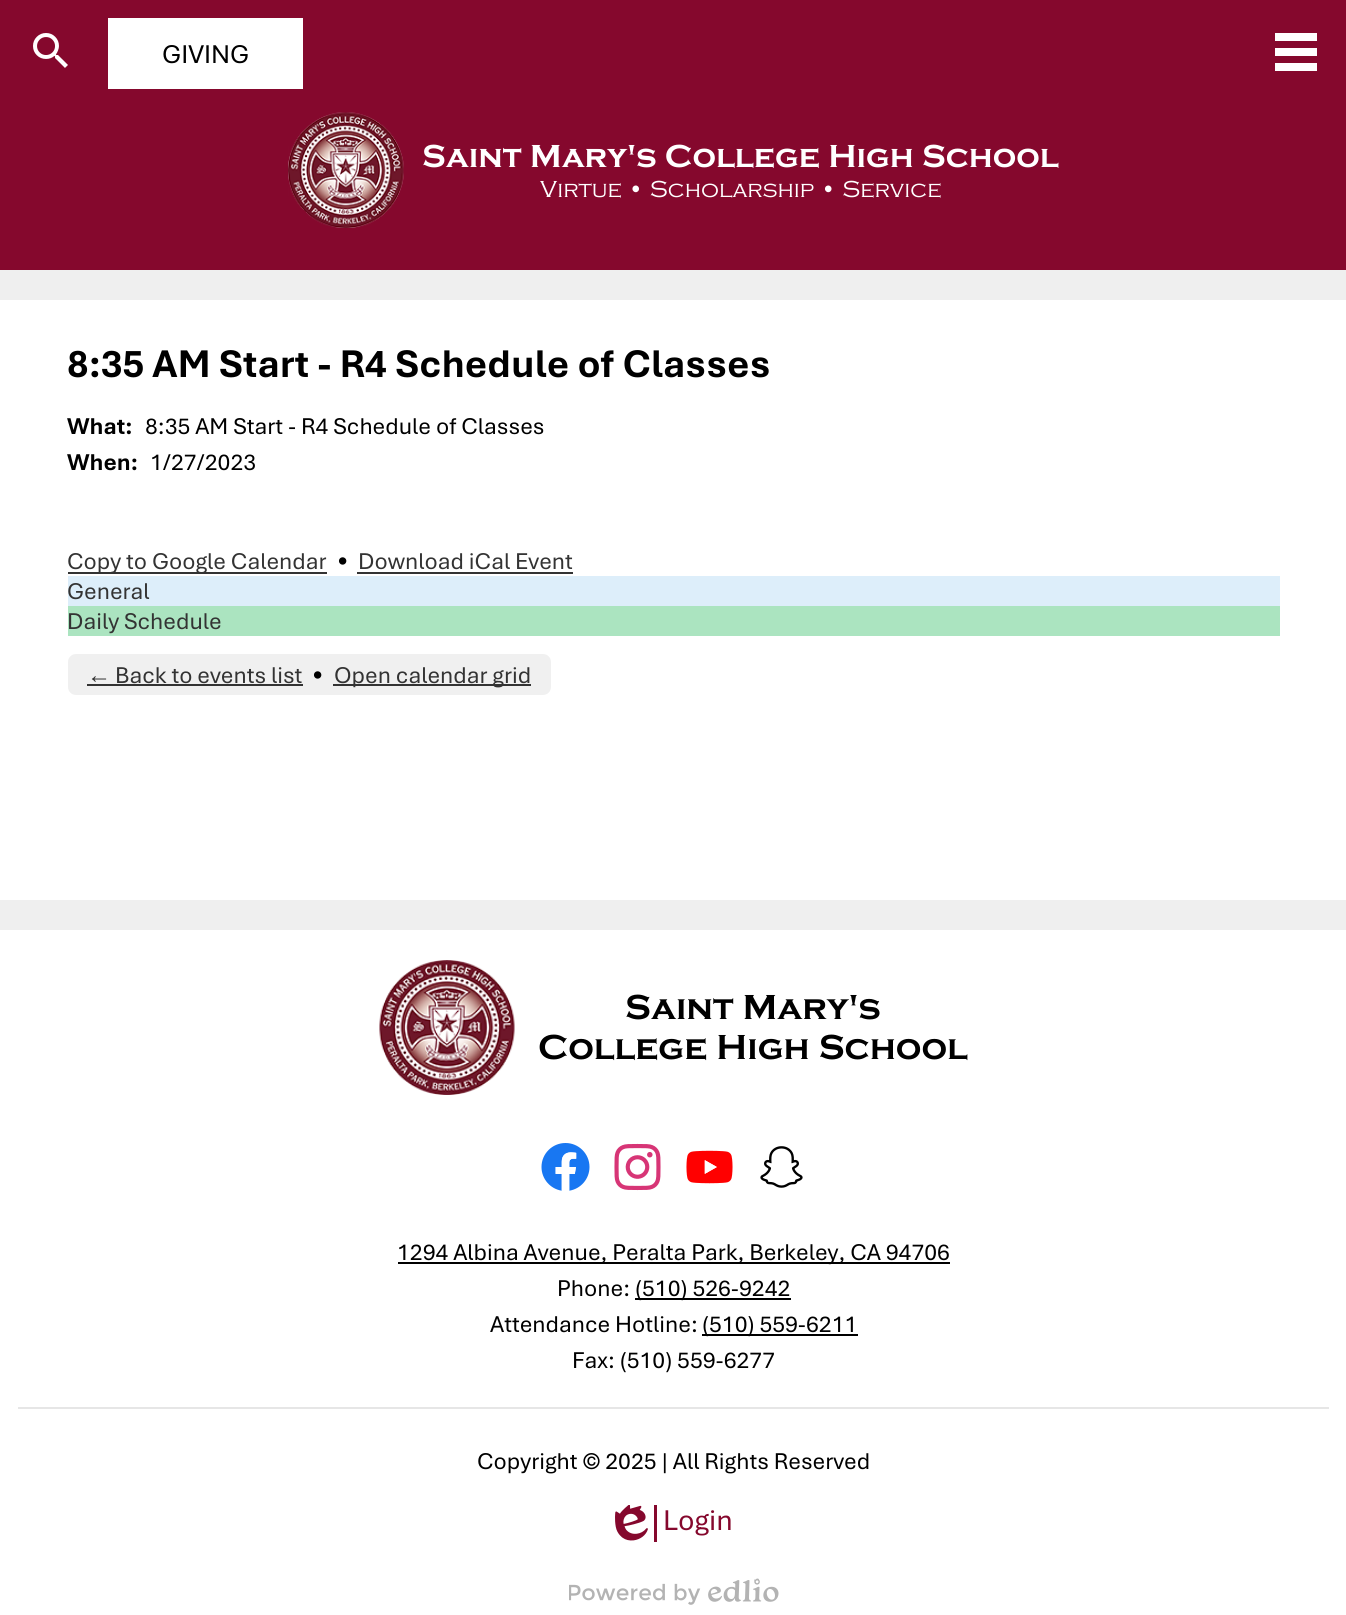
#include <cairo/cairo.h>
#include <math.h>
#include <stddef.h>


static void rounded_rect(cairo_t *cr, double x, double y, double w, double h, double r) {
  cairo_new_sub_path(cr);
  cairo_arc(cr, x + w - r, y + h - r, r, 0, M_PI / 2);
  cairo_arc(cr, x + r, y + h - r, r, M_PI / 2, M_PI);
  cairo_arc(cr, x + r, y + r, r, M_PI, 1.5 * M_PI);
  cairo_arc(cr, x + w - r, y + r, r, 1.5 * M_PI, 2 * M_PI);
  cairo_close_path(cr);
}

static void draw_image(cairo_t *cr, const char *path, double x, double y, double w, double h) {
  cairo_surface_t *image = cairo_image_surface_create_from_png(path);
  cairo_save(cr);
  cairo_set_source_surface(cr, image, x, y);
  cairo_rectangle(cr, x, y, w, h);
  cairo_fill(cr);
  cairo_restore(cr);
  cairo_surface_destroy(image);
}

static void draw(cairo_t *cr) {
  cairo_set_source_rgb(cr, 239 / 255.0, 239 / 255.0, 239 / 255.0);
  cairo_paint(cr);
  cairo_set_source_rgb(cr, 133 / 255.0, 8 / 255.0, 45 / 255.0);
  cairo_rectangle(cr, 0, 0, 1346, 270);
  cairo_fill(cr);
  draw_image(cr, "images/1.png", 33, 33, 35, 35);
  cairo_set_source_rgb(cr, 1, 1, 1);
  cairo_rectangle(cr, 108, 18, 195, 71);
  cairo_fill(cr);
  cairo_rectangle(cr, 1275, 33, 42, 8);
  cairo_fill(cr);
  cairo_rectangle(cr, 1275, 48, 42, 8);
  cairo_fill(cr);
  cairo_rectangle(cr, 1275, 63, 42, 8);
  cairo_fill(cr);
  draw_image(cr, "images/2.png", 288, 112, 116, 116);
  cairo_rectangle(cr, 0, 300, 1346, 600);
  cairo_fill(cr);
  cairo_set_source_rgb(cr, 51 / 255.0, 51 / 255.0, 51 / 255.0);
  cairo_rectangle(cr, 68, 572, 259, 2);
  cairo_fill(cr);
  cairo_rectangle(cr, 357, 572, 216, 2);
  cairo_fill(cr);
  cairo_set_source_rgb(cr, 221 / 255.0, 238 / 255.0, 250 / 255.0);
  cairo_rectangle(cr, 68, 576, 1212, 30);
  cairo_fill(cr);
  cairo_set_source_rgb(cr, 171 / 255.0, 228 / 255.0, 192 / 255.0);
  cairo_rectangle(cr, 68, 606, 1212, 30);
  cairo_fill(cr);
  cairo_set_source_rgb(cr, 240 / 255.0, 240 / 255.0, 240 / 255.0);
  rounded_rect(cr, 68, 654, 483, 41, 8);
  cairo_fill(cr);
  cairo_set_source_rgb(cr, 51 / 255.0, 51 / 255.0, 51 / 255.0);
  cairo_rectangle(cr, 87, 684, 216, 2);
  cairo_fill(cr);
  cairo_rectangle(cr, 333, 684, 198, 2);
  cairo_fill(cr);
  cairo_set_source_rgb(cr, 1, 1, 1);
  cairo_rectangle(cr, 0, 930, 1346, 685);
  cairo_fill(cr);
  draw_image(cr, "images/3.png", 379, 960, 136, 135);
  draw_image(cr, "images/4.png", 541, 1143, 49, 48);
  draw_image(cr, "images/5.png", 614, 1143, 47, 48);
  draw_image(cr, "images/6.png", 686, 1150, 47, 34);
  draw_image(cr, "images/7.png", 760, 1146, 43, 42);
  cairo_set_source_rgb(cr, 0, 0, 0);
  cairo_rectangle(cr, 398, 1262, 552, 2);
  cairo_fill(cr);
  cairo_rectangle(cr, 635, 1298, 156, 2);
  cairo_fill(cr);
  cairo_rectangle(cr, 702, 1334, 156, 2);
  cairo_fill(cr);
  cairo_set_source_rgb(cr, 230 / 255.0, 230 / 255.0, 230 / 255.0);
  cairo_rectangle(cr, 18, 1407, 1311, 2);
  cairo_fill(cr);
  cairo_set_source_rgb(cr, 133 / 255.0, 8 / 255.0, 45 / 255.0);
  cairo_rectangle(cr, 654, 1505, 3, 37);
  cairo_fill(cr);
  draw_image(cr, "images/8.png", 615, 1505, 33, 36);
  draw_image(cr, "images/9.png", 569, 1578, 210, 27);
  cairo_select_font_face(cr, "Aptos", CAIRO_FONT_SLANT_NORMAL, CAIRO_FONT_WEIGHT_NORMAL);
  cairo_set_font_size(cr, 27);
  cairo_set_source_rgb(cr, 0, 0, 0);
  cairo_move_to(cr, 162, 63);
  cairo_show_text(cr, "GIVING");
  cairo_select_font_face(cr, "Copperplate", CAIRO_FONT_SLANT_NORMAL, CAIRO_FONT_WEIGHT_BOLD);
  cairo_set_font_size(cr, 33);
  cairo_set_source_rgb(cr, 1, 1, 1);
  cairo_move_to(cr, 422, 167);
  cairo_show_text(cr, "Saint Mary's College High School");
  cairo_select_font_face(cr, "Copperplate Light", CAIRO_FONT_SLANT_NORMAL, CAIRO_FONT_WEIGHT_NORMAL);
  cairo_set_font_size(cr, 24);
  cairo_move_to(cr, 540, 197);
  cairo_show_text(cr, "Virtue • Scholarship • Service");
  cairo_select_font_face(cr, "Aptos", CAIRO_FONT_SLANT_NORMAL, CAIRO_FONT_WEIGHT_BOLD);
  cairo_set_font_size(cr, 40.5);
  cairo_set_source_rgb(cr, 0, 0, 0);
  cairo_move_to(cr, 67, 377);
  cairo_show_text(cr, "8:35 AM Start - R4 Schedule of Classes");
  cairo_set_font_size(cr, 24);
  cairo_move_to(cr, 67, 434);
  cairo_show_text(cr, "What:");
  cairo_select_font_face(cr, "Aptos", CAIRO_FONT_SLANT_NORMAL, CAIRO_FONT_WEIGHT_NORMAL);
  cairo_move_to(cr, 145, 434);
  cairo_show_text(cr, "8:35 AM Start - R4 Schedule of Classes");
  cairo_select_font_face(cr, "Aptos", CAIRO_FONT_SLANT_NORMAL, CAIRO_FONT_WEIGHT_BOLD);
  cairo_move_to(cr, 67, 470);
  cairo_show_text(cr, "When:");
  cairo_select_font_face(cr, "Aptos", CAIRO_FONT_SLANT_NORMAL, CAIRO_FONT_WEIGHT_NORMAL);
  cairo_move_to(cr, 150, 470);
  cairo_show_text(cr, "1/27/2023");
  cairo_set_source_rgb(cr, 51 / 255.0, 51 / 255.0, 51 / 255.0);
  cairo_move_to(cr, 67, 569);
  cairo_show_text(cr, "Copy to Google Calendar");
  cairo_set_source_rgb(cr, 0, 0, 0);
  cairo_move_to(cr, 337, 569);
  cairo_show_text(cr, "•");
  cairo_set_source_rgb(cr, 51 / 255.0, 51 / 255.0, 51 / 255.0);
  cairo_move_to(cr, 358, 569);
  cairo_show_text(cr, "Download iCal Event");
  cairo_move_to(cr, 67, 599);
  cairo_show_text(cr, "General");
  cairo_move_to(cr, 67, 629);
  cairo_show_text(cr, "Daily Schedule");
  cairo_select_font_face(cr, "Liberation Sans", CAIRO_FONT_SLANT_NORMAL, CAIRO_FONT_WEIGHT_NORMAL);
  cairo_move_to(cr, 87, 683);
  cairo_show_text(cr, "←");
  cairo_select_font_face(cr, "Aptos", CAIRO_FONT_SLANT_NORMAL, CAIRO_FONT_WEIGHT_NORMAL);
  cairo_move_to(cr, 115, 683);
  cairo_show_text(cr, "Back to events list");
  cairo_set_source_rgb(cr, 0, 0, 0);
  cairo_move_to(cr, 312, 683);
  cairo_show_text(cr, "•");
  cairo_set_source_rgb(cr, 51 / 255.0, 51 / 255.0, 51 / 255.0);
  cairo_move_to(cr, 334, 683);
  cairo_show_text(cr, "Open calendar grid");
  cairo_select_font_face(cr, "Copperplate", CAIRO_FONT_SLANT_NORMAL, CAIRO_FONT_WEIGHT_BOLD);
  cairo_set_font_size(cr, 36);
  cairo_set_source_rgb(cr, 0, 0, 0);
  cairo_move_to(cr, 625, 1019);
  cairo_show_text(cr, "Saint Mary's");
  cairo_move_to(cr, 538, 1059);
  cairo_show_text(cr, "College High School");
  cairo_select_font_face(cr, "Aptos", CAIRO_FONT_SLANT_NORMAL, CAIRO_FONT_WEIGHT_NORMAL);
  cairo_set_font_size(cr, 24);
  cairo_move_to(cr, 397, 1260);
  cairo_show_text(cr, "1294 Albina Avenue, Peralta Park, Berkeley, CA 94706");
  cairo_move_to(cr, 557, 1296);
  cairo_show_text(cr, "Phone:");
  cairo_move_to(cr, 635, 1296);
  cairo_show_text(cr, "(510) 526-9242");
  cairo_move_to(cr, 490, 1332);
  cairo_show_text(cr, "Attendance Hotline:");
  cairo_move_to(cr, 702, 1332);
  cairo_show_text(cr, "(510) 559-6211");
  cairo_move_to(cr, 572, 1368);
  cairo_show_text(cr, "Fax: (510) 559-6277");
  cairo_move_to(cr, 477, 1469);
  cairo_show_text(cr, "Copyright © 2025 | All Rights Reserved");
  cairo_set_font_size(cr, 30);
  cairo_set_source_rgb(cr, 133 / 255.0, 8 / 255.0, 45 / 255.0);
  cairo_move_to(cr, 663, 1530);
  cairo_show_text(cr, "Login");
}

int main(void) {
  cairo_surface_t *surface = cairo_image_surface_create(CAIRO_FORMAT_RGB24, 1346, 1615);
  cairo_t *cr = cairo_create(surface);
  cairo_font_options_t *options = cairo_font_options_create();
  cairo_font_options_set_hint_metrics(options, CAIRO_HINT_METRICS_OFF);
  cairo_font_options_set_hint_style(options, CAIRO_HINT_STYLE_NONE);
  cairo_set_font_options(cr, options);
  cairo_set_miter_limit(cr, 4);
  draw(cr);
  cairo_surface_write_to_png(surface, "out.png");
  cairo_font_options_destroy(options);
  cairo_destroy(cr);
  cairo_surface_destroy(surface);
  return 0;
}
